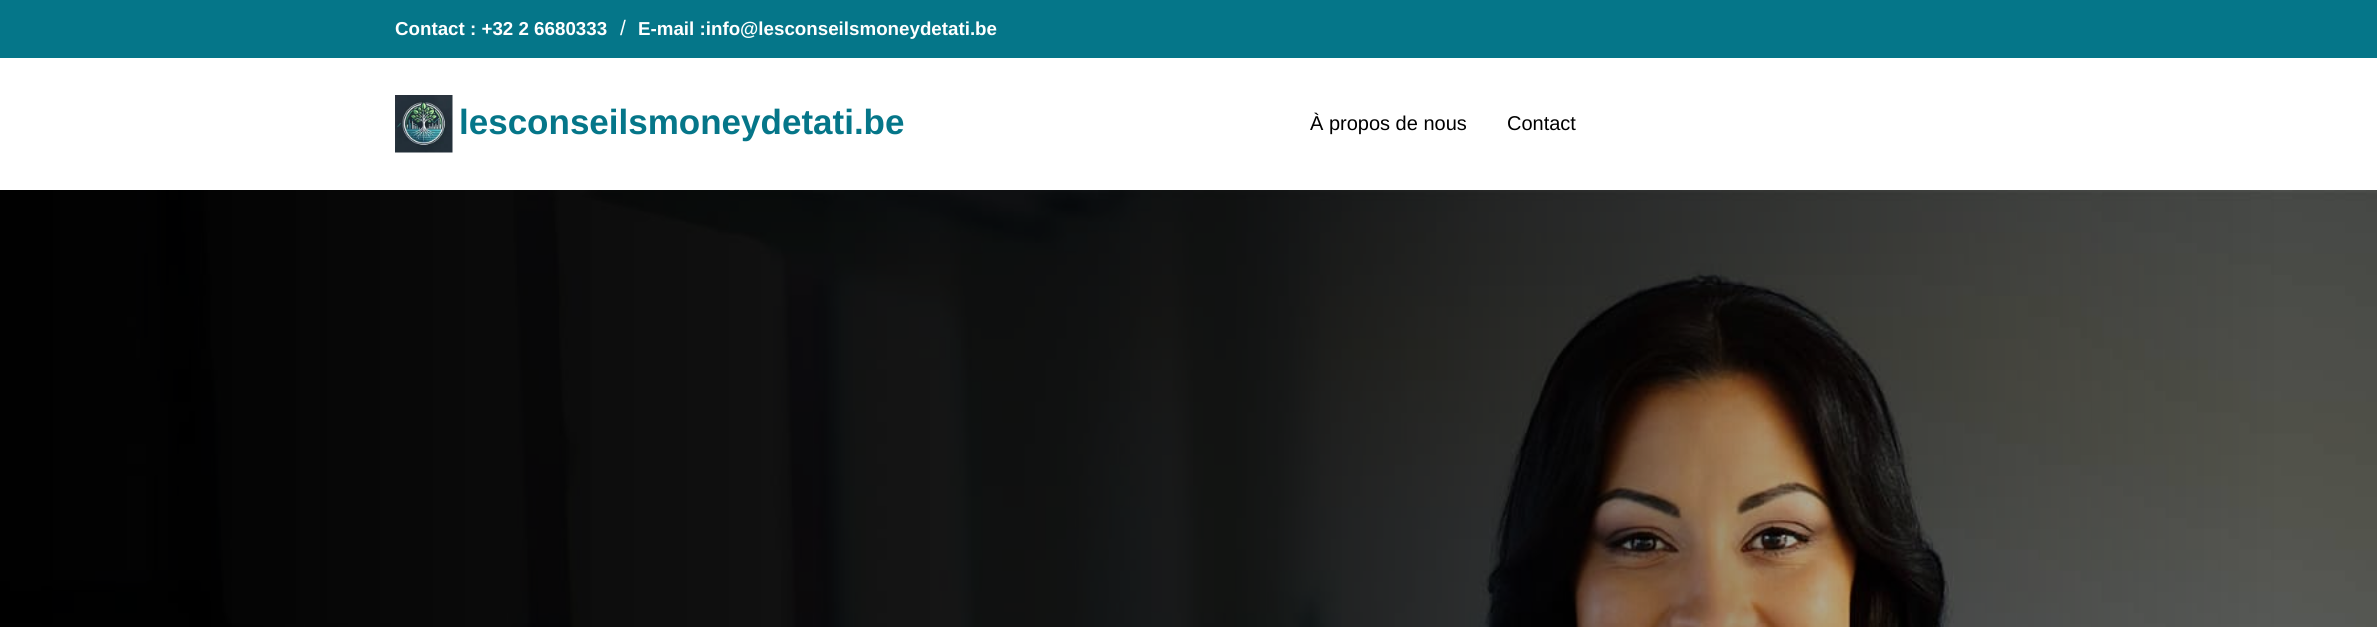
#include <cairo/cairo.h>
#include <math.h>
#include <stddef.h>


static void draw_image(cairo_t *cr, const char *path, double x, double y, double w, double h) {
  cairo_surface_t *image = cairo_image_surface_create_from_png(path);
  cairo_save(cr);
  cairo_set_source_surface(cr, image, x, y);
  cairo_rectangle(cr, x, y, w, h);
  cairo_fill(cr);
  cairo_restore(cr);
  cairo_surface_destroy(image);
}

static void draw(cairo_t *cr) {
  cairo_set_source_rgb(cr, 1, 1, 1);
  cairo_paint(cr);
  cairo_set_source_rgb(cr, 5 / 255.0, 118 / 255.0, 137 / 255.0);
  cairo_rectangle(cr, 0, 0, 2377, 58);
  cairo_fill(cr);
  draw_image(cr, "images/1.png", 395, 95, 58, 58);
  draw_image(cr, "images/2.png", 0, 190, 2377, 437);
  cairo_select_font_face(cr, "Liberation Sans", CAIRO_FONT_SLANT_NORMAL, CAIRO_FONT_WEIGHT_BOLD);
  cairo_set_font_size(cr, 18.75);
  cairo_set_source_rgb(cr, 1, 1, 1);
  cairo_move_to(cr, 395, 35);
  cairo_show_text(cr, "Contact : +32 2 6680333");
  cairo_select_font_face(cr, "Liberation Sans", CAIRO_FONT_SLANT_NORMAL, CAIRO_FONT_WEIGHT_NORMAL);
  cairo_set_font_size(cr, 21);
  cairo_move_to(cr, 620, 35);
  cairo_show_text(cr, "/");
  cairo_select_font_face(cr, "Liberation Sans", CAIRO_FONT_SLANT_NORMAL, CAIRO_FONT_WEIGHT_BOLD);
  cairo_set_font_size(cr, 18.75);
  cairo_move_to(cr, 638, 35);
  cairo_show_text(cr, "E-mail :info@lesconseilsmoneydetati.be");
  cairo_set_font_size(cr, 35);
  cairo_set_source_rgb(cr, 5 / 255.0, 118 / 255.0, 137 / 255.0);
  cairo_move_to(cr, 459, 134);
  cairo_show_text(cr, "lesconseilsmoneydetati.be");
  cairo_select_font_face(cr, "Liberation Sans", CAIRO_FONT_SLANT_NORMAL, CAIRO_FONT_WEIGHT_NORMAL);
  cairo_set_font_size(cr, 20);
  cairo_set_source_rgb(cr, 0, 0, 0);
  cairo_move_to(cr, 1310, 130);
  cairo_show_text(cr, "À propos de nous");
  cairo_move_to(cr, 1507, 130);
  cairo_show_text(cr, "Contact");
}

int main(void) {
  cairo_surface_t *surface = cairo_image_surface_create(CAIRO_FORMAT_RGB24, 2377, 627);
  cairo_t *cr = cairo_create(surface);
  cairo_font_options_t *options = cairo_font_options_create();
  cairo_font_options_set_hint_metrics(options, CAIRO_HINT_METRICS_OFF);
  cairo_font_options_set_hint_style(options, CAIRO_HINT_STYLE_NONE);
  cairo_set_font_options(cr, options);
  cairo_set_miter_limit(cr, 4);
  draw(cr);
  cairo_surface_write_to_png(surface, "out.png");
  cairo_font_options_destroy(options);
  cairo_destroy(cr);
  cairo_surface_destroy(surface);
  return 0;
}
